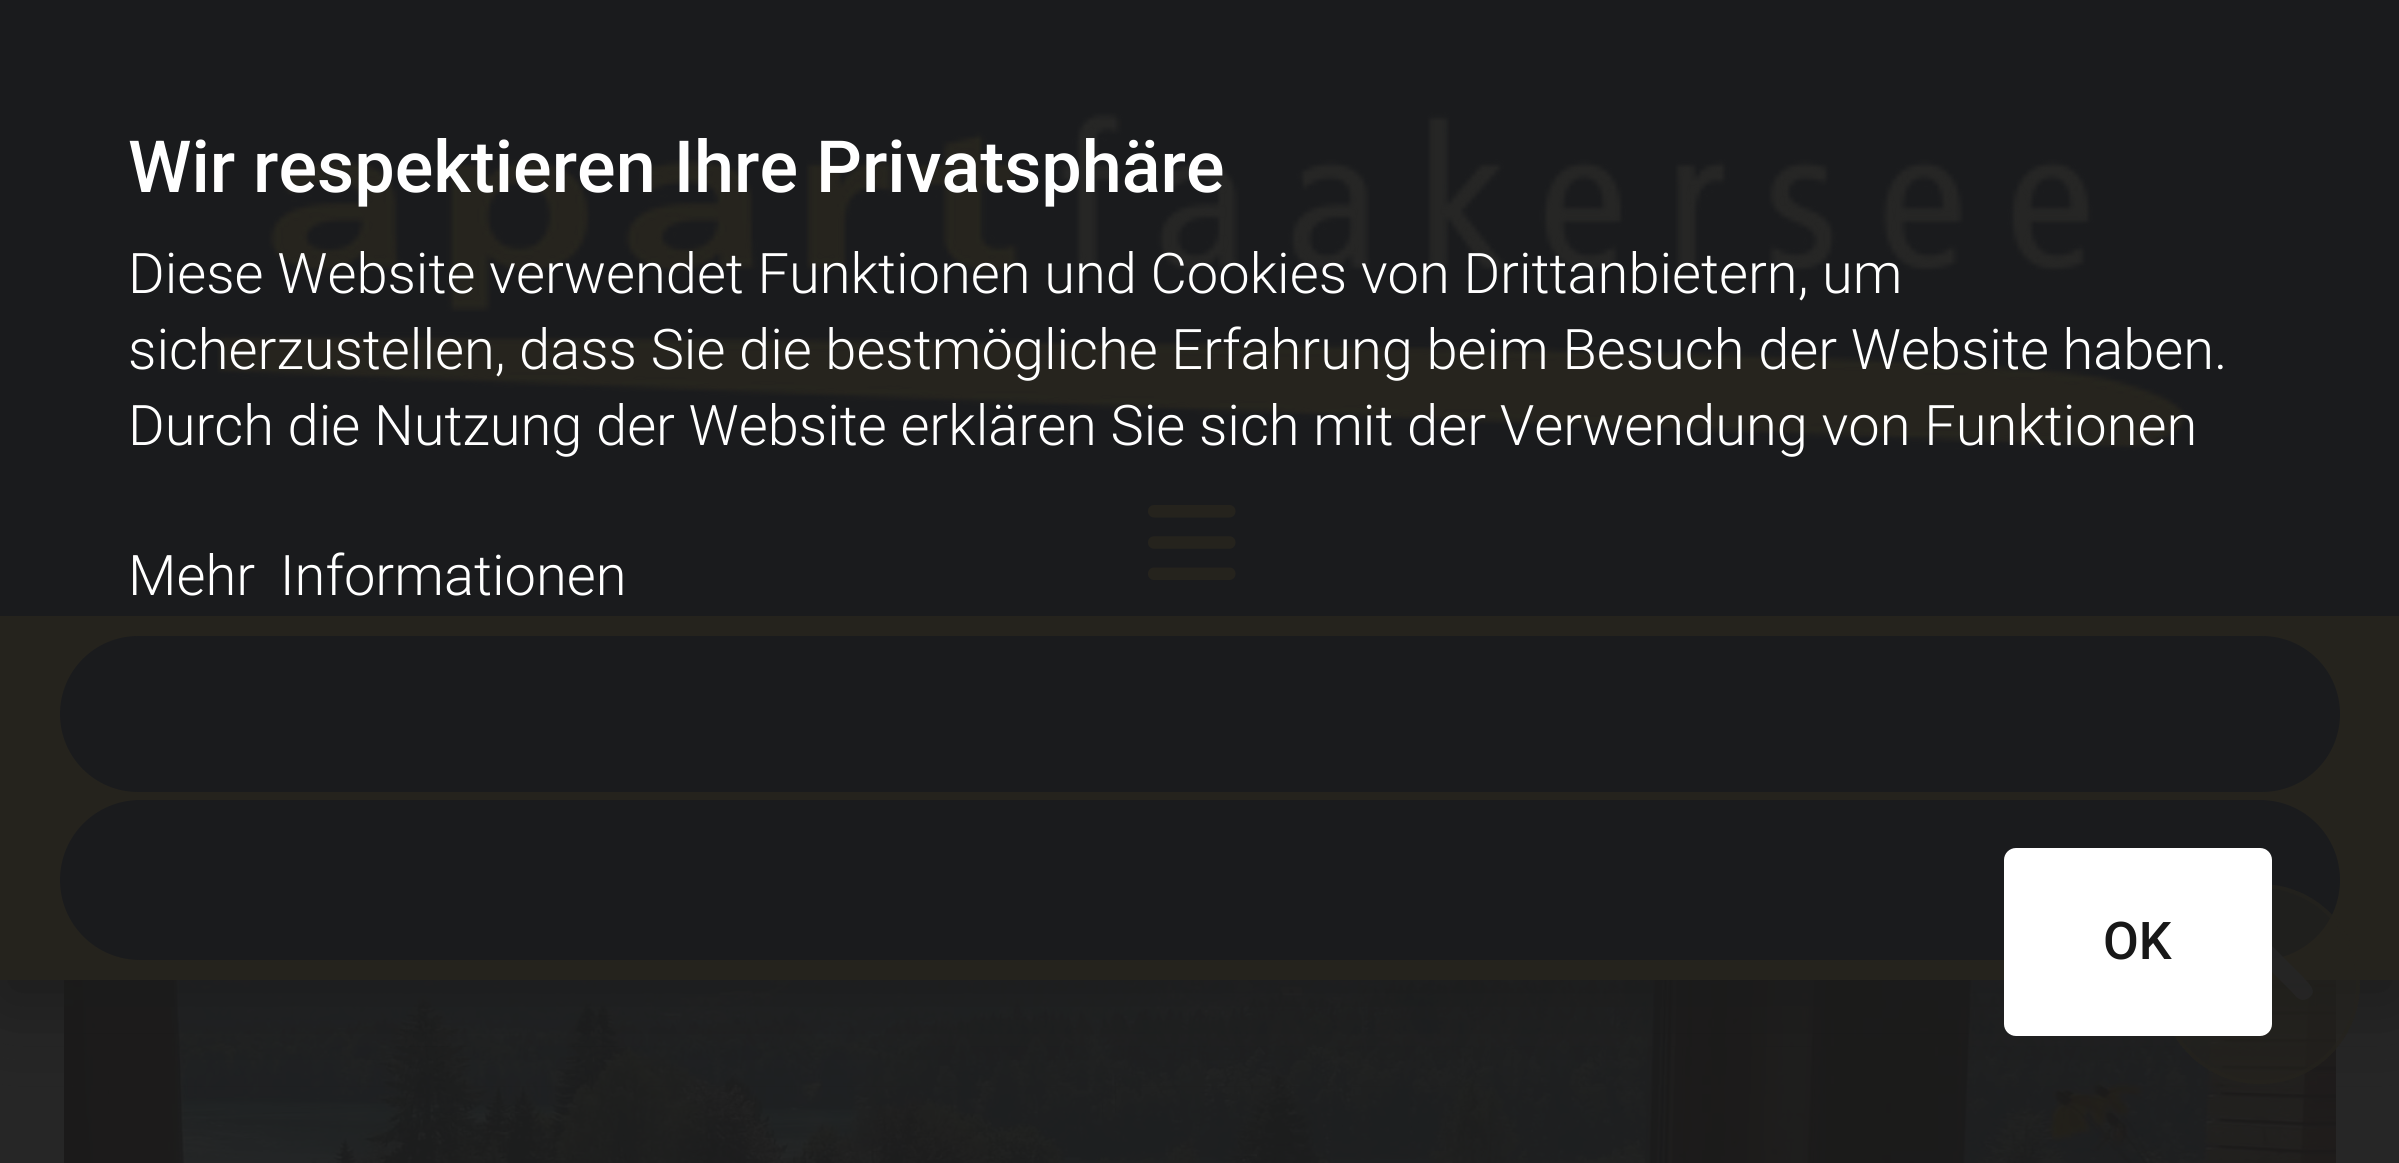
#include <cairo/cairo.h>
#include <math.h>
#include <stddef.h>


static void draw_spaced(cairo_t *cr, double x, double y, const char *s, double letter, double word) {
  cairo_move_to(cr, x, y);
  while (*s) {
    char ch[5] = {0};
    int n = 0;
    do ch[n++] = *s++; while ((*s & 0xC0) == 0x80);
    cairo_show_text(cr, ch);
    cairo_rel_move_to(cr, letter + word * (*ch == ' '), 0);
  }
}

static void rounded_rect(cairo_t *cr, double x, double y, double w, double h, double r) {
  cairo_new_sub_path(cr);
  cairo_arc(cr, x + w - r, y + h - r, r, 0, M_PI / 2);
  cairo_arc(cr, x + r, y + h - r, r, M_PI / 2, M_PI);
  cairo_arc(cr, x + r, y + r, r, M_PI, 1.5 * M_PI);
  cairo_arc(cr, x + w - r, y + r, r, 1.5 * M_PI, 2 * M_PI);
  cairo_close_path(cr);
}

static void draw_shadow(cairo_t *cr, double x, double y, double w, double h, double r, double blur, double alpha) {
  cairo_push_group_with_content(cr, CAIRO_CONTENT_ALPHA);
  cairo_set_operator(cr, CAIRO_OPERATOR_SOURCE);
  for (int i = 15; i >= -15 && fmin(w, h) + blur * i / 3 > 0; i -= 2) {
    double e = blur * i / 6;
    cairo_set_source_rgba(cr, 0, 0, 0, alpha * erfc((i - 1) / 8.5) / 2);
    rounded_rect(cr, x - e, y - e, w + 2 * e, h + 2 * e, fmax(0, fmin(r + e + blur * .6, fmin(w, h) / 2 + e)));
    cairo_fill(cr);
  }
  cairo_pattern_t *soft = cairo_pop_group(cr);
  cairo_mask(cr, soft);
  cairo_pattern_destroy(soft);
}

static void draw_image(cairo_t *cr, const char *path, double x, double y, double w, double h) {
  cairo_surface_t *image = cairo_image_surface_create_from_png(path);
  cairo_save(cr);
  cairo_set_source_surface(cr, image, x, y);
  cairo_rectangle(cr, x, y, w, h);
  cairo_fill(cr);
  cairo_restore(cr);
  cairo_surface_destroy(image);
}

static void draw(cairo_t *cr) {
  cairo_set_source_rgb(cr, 38 / 255.0, 38 / 255.0, 38 / 255.0);
  cairo_paint(cr);
  draw_image(cr, "images/3.png", 64, 980, 2272, 183);
  cairo_set_source_rgb(cr, 26 / 255.0, 26 / 255.0, 26 / 255.0);
  draw_shadow(cr, 0, 20, 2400, 980, 0, 40, 0.9);
  cairo_set_source_rgb(cr, 26 / 255.0, 27 / 255.0, 29 / 255.0);
  cairo_rectangle(cr, 0, 0, 2399, 616);
  cairo_fill(cr);
  draw_image(cr, "images/1.png", 217, 112, 1971, 340);
  draw_image(cr, "images/2.png", 1148, 505, 88, 75);
  cairo_set_source_rgb(cr, 37 / 255.0, 35 / 255.0, 29 / 255.0);
  cairo_rectangle(cr, 0, 616, 2399, 364);
  cairo_fill(cr);
  cairo_set_source_rgb(cr, 26 / 255.0, 27 / 255.0, 29 / 255.0);
  rounded_rect(cr, 60, 636, 2280, 156, 78);
  cairo_fill(cr);
  rounded_rect(cr, 60, 800, 2280, 160, 80);
  cairo_fill(cr);
  cairo_set_source_rgba(cr, 37 / 255.0, 35 / 255.0, 29 / 255.0, 0.52);
  cairo_arc(cr, 2260, 984, 100, 0, 2 * M_PI);
  cairo_fill(cr);
  cairo_arc(cr, 2260, 984, 98, 0, 2 * M_PI);
  cairo_set_line_width(cr, 4);
  cairo_stroke(cr);
  cairo_set_source_rgba(cr, 38 / 255.0, 38 / 255.0, 38 / 255.0, 0.8);
  cairo_new_path(cr);
  cairo_move_to(cr, 2254, 941);
  cairo_curve_to(cr, 2262, 934, 2268, 943, 2274, 948);
  cairo_line_to(cr, 2303, 977);
  cairo_curve_to(cr, 2307, 982, 2318, 990, 2310, 997);
  cairo_curve_to(cr, 2308, 999, 2305, 1000, 2302, 1000);
  cairo_curve_to(cr, 2297, 999, 2294, 994, 2291, 991);
  cairo_line_to(cr, 2260, 960);
  cairo_line_to(cr, 2229, 991);
  cairo_curve_to(cr, 2224, 996, 2219, 1002, 2212, 999);
  cairo_curve_to(cr, 2210, 998, 2209, 996, 2208, 994);
  cairo_curve_to(cr, 2205, 987, 2213, 982, 2217, 977);
  cairo_close_path(cr);
  cairo_fill(cr);
  cairo_set_source_rgb(cr, 1, 1, 1);
  rounded_rect(cr, 2006, 850, 264, 184, 10);
  cairo_fill_preserve(cr);
  cairo_stroke(cr);
  cairo_select_font_face(cr, "Roboto Medium", CAIRO_FONT_SLANT_NORMAL, CAIRO_FONT_WEIGHT_NORMAL);
  cairo_set_font_size(cr, 72);
  cairo_move_to(cr, 128, 192);
  cairo_show_text(cr, "Wir respektieren Ihre Privatsphäre");
  cairo_select_font_face(cr, "Roboto Light", CAIRO_FONT_SLANT_NORMAL, CAIRO_FONT_WEIGHT_NORMAL);
  cairo_set_font_size(cr, 56);
  cairo_move_to(cr, 128, 293);
  cairo_show_text(cr, "Diese Website verwendet Funktionen und Cookies von Drittanbietern, um");
  cairo_move_to(cr, 128, 369);
  cairo_show_text(cr, "sicherzustellen, dass Sie die bestmögliche Erfahrung beim Besuch der Website haben.");
  cairo_move_to(cr, 128, 445);
  cairo_show_text(cr, "Durch die Nutzung der Website erklären Sie sich mit der Verwendung von Funktionen");
  draw_spaced(cr, 128, 595, "Mehr Informationen", 0, 11);
  cairo_select_font_face(cr, "Roboto Medium", CAIRO_FONT_SLANT_NORMAL, CAIRO_FONT_WEIGHT_NORMAL);
  cairo_set_font_size(cr, 52);
  cairo_set_source_rgb(cr, 24 / 255.0, 24 / 255.0, 24 / 255.0);
  cairo_move_to(cr, 2103, 959);
  cairo_show_text(cr, "OK");
}

int main(void) {
  cairo_surface_t *surface = cairo_image_surface_create(CAIRO_FORMAT_RGB24, 2399, 1163);
  cairo_t *cr = cairo_create(surface);
  cairo_font_options_t *options = cairo_font_options_create();
  cairo_font_options_set_hint_metrics(options, CAIRO_HINT_METRICS_OFF);
  cairo_font_options_set_hint_style(options, CAIRO_HINT_STYLE_NONE);
  cairo_set_font_options(cr, options);
  cairo_set_miter_limit(cr, 4);
  draw(cr);
  cairo_surface_write_to_png(surface, "out.png");
  cairo_font_options_destroy(options);
  cairo_destroy(cr);
  cairo_surface_destroy(surface);
  return 0;
}
